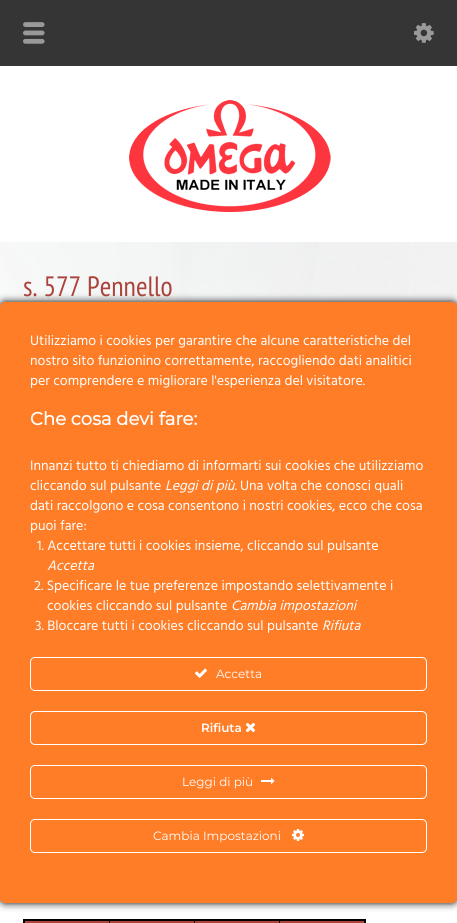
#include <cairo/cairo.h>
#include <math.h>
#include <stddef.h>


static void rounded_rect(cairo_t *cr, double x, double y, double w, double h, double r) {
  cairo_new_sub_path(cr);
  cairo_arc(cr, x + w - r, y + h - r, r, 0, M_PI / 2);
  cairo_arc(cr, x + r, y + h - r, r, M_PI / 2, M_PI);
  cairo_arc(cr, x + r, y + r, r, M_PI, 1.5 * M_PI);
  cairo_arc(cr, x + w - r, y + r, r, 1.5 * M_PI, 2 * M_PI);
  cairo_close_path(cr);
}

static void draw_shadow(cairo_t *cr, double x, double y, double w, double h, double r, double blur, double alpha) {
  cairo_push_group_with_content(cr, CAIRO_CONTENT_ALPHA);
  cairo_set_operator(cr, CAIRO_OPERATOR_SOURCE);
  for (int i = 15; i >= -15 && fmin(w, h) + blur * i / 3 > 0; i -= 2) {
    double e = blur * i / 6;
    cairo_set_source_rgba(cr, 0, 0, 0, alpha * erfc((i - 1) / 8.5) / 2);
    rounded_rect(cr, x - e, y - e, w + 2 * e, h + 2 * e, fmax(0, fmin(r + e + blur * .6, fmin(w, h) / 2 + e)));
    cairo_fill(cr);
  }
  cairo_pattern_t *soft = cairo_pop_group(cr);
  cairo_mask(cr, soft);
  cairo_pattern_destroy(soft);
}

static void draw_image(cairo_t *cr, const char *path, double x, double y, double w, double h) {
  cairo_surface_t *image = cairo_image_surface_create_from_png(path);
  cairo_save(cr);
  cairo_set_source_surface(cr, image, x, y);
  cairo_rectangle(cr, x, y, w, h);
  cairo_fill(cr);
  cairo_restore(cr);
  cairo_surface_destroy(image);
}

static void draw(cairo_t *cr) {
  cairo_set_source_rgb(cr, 1, 1, 1);
  cairo_paint(cr);
  cairo_set_source_rgb(cr, 53 / 255.0, 53 / 255.0, 53 / 255.0);
  cairo_rectangle(cr, 0, 0, 457, 66);
  cairo_fill(cr);
  draw_image(cr, "images/1.png", 23, 22, 22, 22);
  draw_image(cr, "images/2.png", 414, 23, 20, 20);
  draw_image(cr, "images/3.png", 129, 100, 202, 112);
  draw_image(cr, "images/4.png", 0, 242, 457, 65);
  cairo_set_source_rgb(cr, 176 / 255.0, 66 / 255.0, 60 / 255.0);
  cairo_rectangle(cr, 24, 921, 341, 2);
  cairo_fill(cr);
  cairo_set_source_rgb(cr, 0, 0, 0);
  cairo_rectangle(cr, 109, 919, 1, 4);
  cairo_fill(cr);
  cairo_rectangle(cr, 194, 919, 1, 4);
  cairo_fill(cr);
  cairo_rectangle(cr, 279, 919, 1, 4);
  cairo_fill(cr);
  cairo_rectangle(cr, 23, 919, 343, 2);
  cairo_fill(cr);
  cairo_rectangle(cr, 364, 919, 2, 4);
  cairo_fill(cr);
  cairo_rectangle(cr, 23, 919, 2, 4);
  cairo_fill(cr);
  cairo_set_source_rgb(cr, 0, 0, 0);
  draw_shadow(cr, 0, 302, 457, 601, 5, 4, 1);
  cairo_set_source_rgb(cr, 1, 125 / 255.0, 39 / 255.0);
  rounded_rect(cr, 0, 302, 457, 601, 5);
  cairo_fill(cr);
  rounded_rect(cr, 30.5, 657.5, 396, 33, 4.5);
  cairo_set_source_rgb(cr, 1, 1, 1);
  cairo_set_line_width(cr, 1);
  cairo_stroke(cr);
  draw_image(cr, "images/5.png", 195, 668, 12, 10);
  rounded_rect(cr, 30.5, 711.5, 396, 33, 4.5);
  cairo_stroke(cr);
  draw_image(cr, "images/6.png", 245, 722, 11, 11);
  rounded_rect(cr, 30.5, 765.5, 396, 33, 4.5);
  cairo_stroke(cr);
  draw_image(cr, "images/7.png", 261, 778, 14, 6);
  rounded_rect(cr, 30.5, 819.5, 396, 33, 4.5);
  cairo_stroke(cr);
  draw_image(cr, "images/8.png", 292, 829, 12, 12);
  cairo_select_font_face(cr, "PT Sans Narrow", CAIRO_FONT_SLANT_NORMAL, CAIRO_FONT_WEIGHT_NORMAL);
  cairo_set_font_size(cr, 28);
  cairo_set_source_rgb(cr, 172 / 255.0, 66 / 255.0, 60 / 255.0);
  cairo_move_to(cr, 23, 296);
  cairo_show_text(cr, "s. 577 Pennello");
  cairo_select_font_face(cr, "Hind", CAIRO_FONT_SLANT_NORMAL, CAIRO_FONT_WEIGHT_NORMAL);
  cairo_set_font_size(cr, 14);
  cairo_set_source_rgb(cr, 1, 1, 1);
  cairo_move_to(cr, 30, 345);
  cairo_show_text(cr, "Utilizziamo i cookies per garantire che alcune caratteristiche del");
  cairo_move_to(cr, 30, 365);
  cairo_show_text(cr, "nostro sito funzionino correttamente, raccogliendo dati analitici");
  cairo_move_to(cr, 30, 385);
  cairo_show_text(cr, "per comprendere e migliorare l'esperienza del visitatore.");
  cairo_select_font_face(cr, "Montserrat", CAIRO_FONT_SLANT_NORMAL, CAIRO_FONT_WEIGHT_BOLD);
  cairo_set_font_size(cr, 18);
  cairo_move_to(cr, 30, 425);
  cairo_show_text(cr, "Che cosa devi fare:");
  cairo_select_font_face(cr, "Hind", CAIRO_FONT_SLANT_NORMAL, CAIRO_FONT_WEIGHT_NORMAL);
  cairo_set_font_size(cr, 14);
  cairo_move_to(cr, 30, 470);
  cairo_show_text(cr, "Innanzi tutto ti chiediamo di informarti sui cookies che utilizziamo");
  cairo_move_to(cr, 30, 490);
  cairo_show_text(cr, "cliccando sul pulsante");
  cairo_select_font_face(cr, "Hind", CAIRO_FONT_SLANT_ITALIC, CAIRO_FONT_WEIGHT_NORMAL);
  cairo_move_to(cr, 165, 490);
  cairo_show_text(cr, "Leggi di più.");
  cairo_select_font_face(cr, "Hind", CAIRO_FONT_SLANT_NORMAL, CAIRO_FONT_WEIGHT_NORMAL);
  cairo_move_to(cr, 240, 490);
  cairo_show_text(cr, "Una volta che conosci quali");
  cairo_move_to(cr, 30, 510);
  cairo_show_text(cr, "dati raccolgono e cosa consentono i nostri cookies, ecco che cosa");
  cairo_move_to(cr, 30, 530);
  cairo_show_text(cr, "puoi fare:");
  cairo_move_to(cr, 37, 550);
  cairo_show_text(cr, "1. Accettare tutti i cookies insieme, cliccando sul pulsante");
  cairo_select_font_face(cr, "Hind", CAIRO_FONT_SLANT_ITALIC, CAIRO_FONT_WEIGHT_NORMAL);
  cairo_move_to(cr, 47, 570);
  cairo_show_text(cr, "Accetta");
  cairo_select_font_face(cr, "Hind", CAIRO_FONT_SLANT_NORMAL, CAIRO_FONT_WEIGHT_NORMAL);
  cairo_move_to(cr, 34, 590);
  cairo_show_text(cr, "2. Specificare le tue preferenze impostando selettivamente i");
  cairo_move_to(cr, 47, 610);
  cairo_show_text(cr, "cookies cliccando sul pulsante");
  cairo_select_font_face(cr, "Hind", CAIRO_FONT_SLANT_ITALIC, CAIRO_FONT_WEIGHT_NORMAL);
  cairo_move_to(cr, 231, 610);
  cairo_show_text(cr, "Cambia impostazioni");
  cairo_select_font_face(cr, "Hind", CAIRO_FONT_SLANT_NORMAL, CAIRO_FONT_WEIGHT_NORMAL);
  cairo_move_to(cr, 35, 630);
  cairo_show_text(cr, "3. Bloccare tutti i cookies cliccando sul pulsante");
  cairo_select_font_face(cr, "Hind", CAIRO_FONT_SLANT_ITALIC, CAIRO_FONT_WEIGHT_NORMAL);
  cairo_move_to(cr, 322, 630);
  cairo_show_text(cr, "Rifiuta");
  cairo_select_font_face(cr, "Montserrat", CAIRO_FONT_SLANT_NORMAL, CAIRO_FONT_WEIGHT_NORMAL);
  cairo_set_font_size(cr, 12);
  cairo_move_to(cr, 216, 678);
  cairo_show_text(cr, "Accetta");
  cairo_select_font_face(cr, "Montserrat SemiBold", CAIRO_FONT_SLANT_NORMAL, CAIRO_FONT_WEIGHT_NORMAL);
  cairo_move_to(cr, 201, 732);
  cairo_show_text(cr, "Rifiuta");
  cairo_select_font_face(cr, "Montserrat", CAIRO_FONT_SLANT_NORMAL, CAIRO_FONT_WEIGHT_NORMAL);
  cairo_move_to(cr, 182, 786);
  cairo_show_text(cr, "Leggi di più");
  cairo_move_to(cr, 153, 840);
  cairo_show_text(cr, "Cambia Impostazioni");
}

int main(void) {
  cairo_surface_t *surface = cairo_image_surface_create(CAIRO_FORMAT_RGB24, 457, 923);
  cairo_t *cr = cairo_create(surface);
  cairo_font_options_t *options = cairo_font_options_create();
  cairo_font_options_set_hint_metrics(options, CAIRO_HINT_METRICS_OFF);
  cairo_font_options_set_hint_style(options, CAIRO_HINT_STYLE_NONE);
  cairo_set_font_options(cr, options);
  cairo_set_miter_limit(cr, 4);
  draw(cr);
  cairo_surface_write_to_png(surface, "out.png");
  cairo_font_options_destroy(options);
  cairo_destroy(cr);
  cairo_surface_destroy(surface);
  return 0;
}
